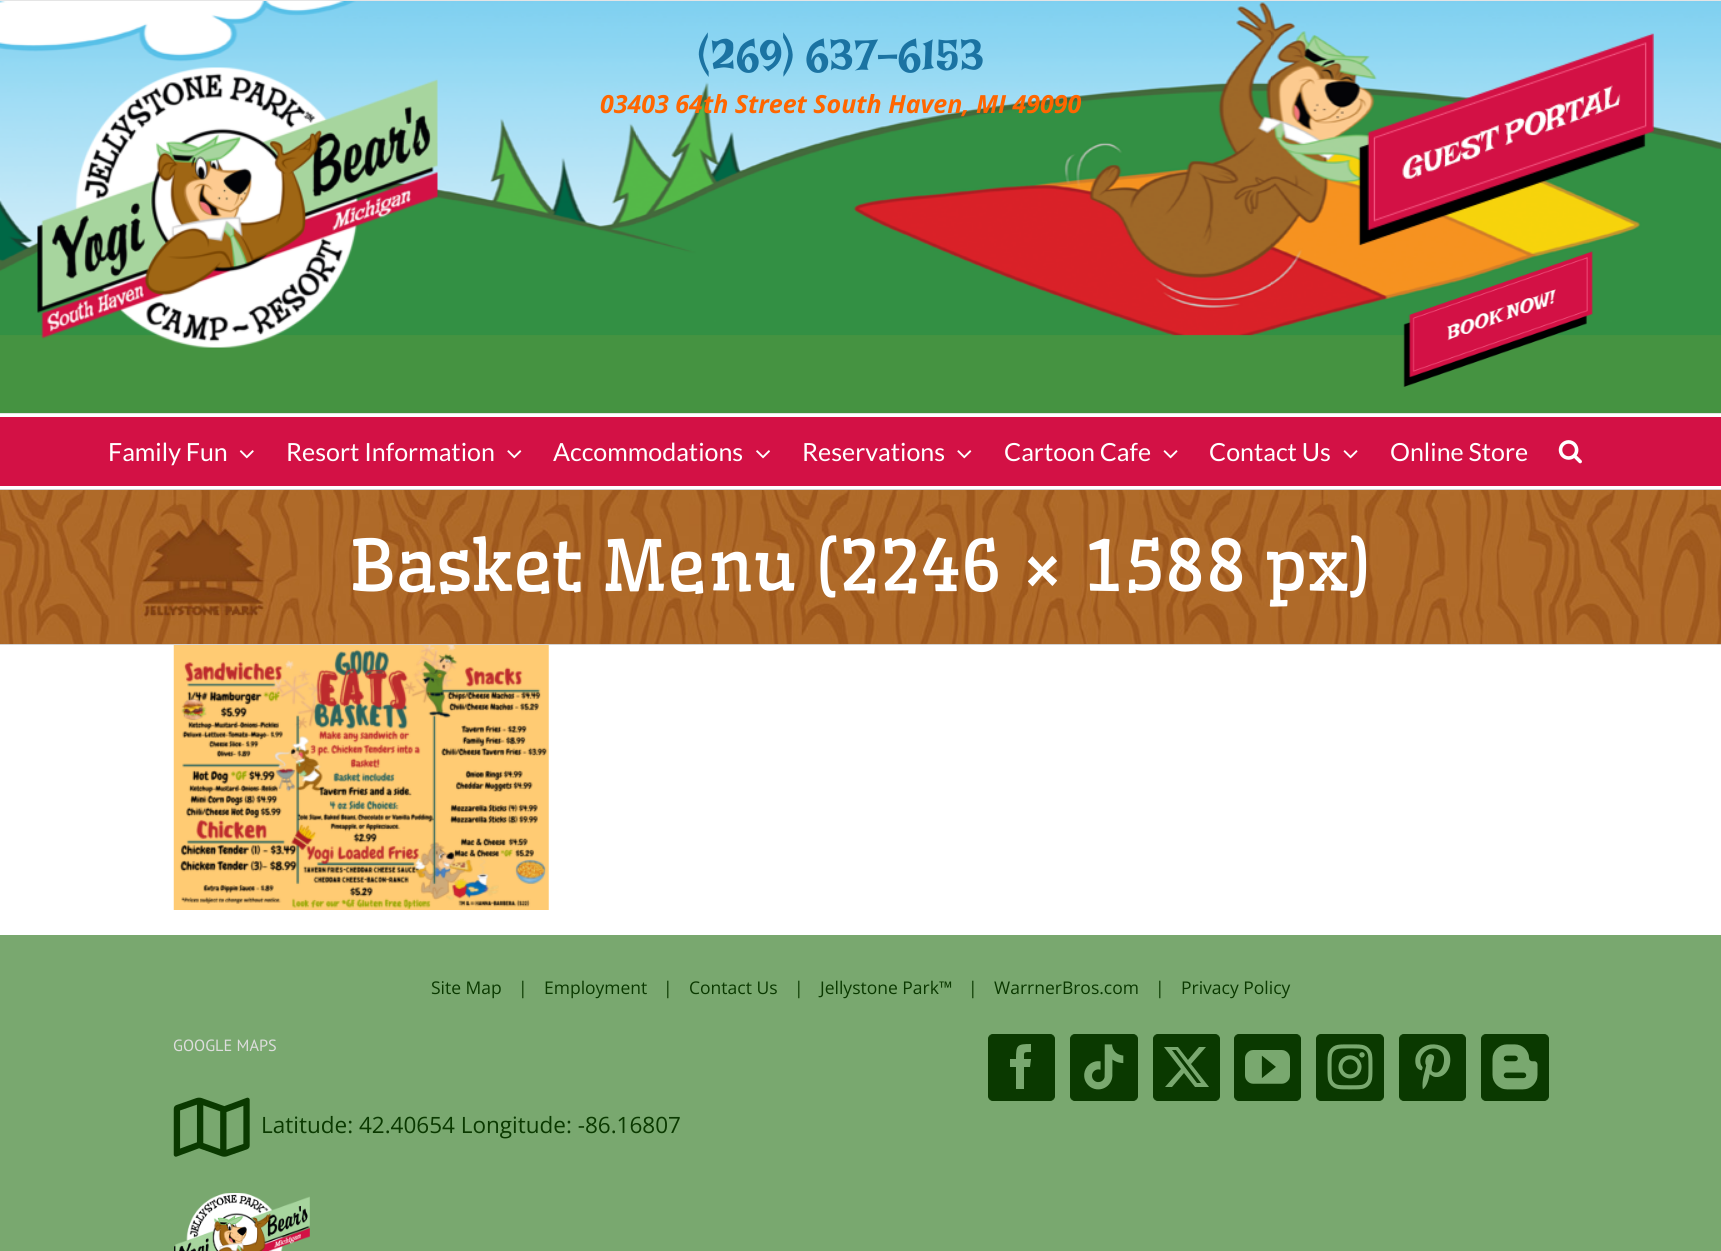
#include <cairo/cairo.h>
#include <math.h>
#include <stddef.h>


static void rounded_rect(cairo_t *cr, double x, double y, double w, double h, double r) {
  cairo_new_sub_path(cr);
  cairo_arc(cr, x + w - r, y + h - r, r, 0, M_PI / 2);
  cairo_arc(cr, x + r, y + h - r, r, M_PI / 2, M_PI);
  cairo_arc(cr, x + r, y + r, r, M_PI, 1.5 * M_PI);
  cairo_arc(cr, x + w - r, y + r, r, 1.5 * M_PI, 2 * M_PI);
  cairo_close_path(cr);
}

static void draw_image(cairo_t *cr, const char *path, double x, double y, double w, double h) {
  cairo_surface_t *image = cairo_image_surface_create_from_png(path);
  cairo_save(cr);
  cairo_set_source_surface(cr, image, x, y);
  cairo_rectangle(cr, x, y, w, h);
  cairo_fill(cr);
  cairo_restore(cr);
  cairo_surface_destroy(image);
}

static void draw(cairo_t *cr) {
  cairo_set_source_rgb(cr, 1, 1, 1);
  cairo_paint(cr);
  cairo_set_source_rgb(cr, 229 / 255.0, 229 / 255.0, 229 / 255.0);
  cairo_rectangle(cr, 0, 0, 1721, 1);
  cairo_fill(cr);
  cairo_set_source_rgb(cr, 69 / 255.0, 147 / 255.0, 65 / 255.0);
  cairo_rectangle(cr, 0, 334, 1721, 79);
  cairo_fill(cr);
  draw_image(cr, "images/1.png", 0, 1, 1721, 335);
  cairo_set_source_rgb(cr, 229 / 255.0, 229 / 255.0, 229 / 255.0);
  cairo_rectangle(cr, 0, 413, 1721, 1);
  cairo_fill(cr);
  draw_image(cr, "images/2.png", 37, 67, 401, 281);
  draw_image(cr, "images/3.png", 1358, 33, 296, 213);
  draw_image(cr, "images/4.png", 1403, 251, 190, 136);
  cairo_set_source_rgb(cr, 211 / 255.0, 17 / 255.0, 69 / 255.0);
  cairo_rectangle(cr, 0, 417, 1721, 69);
  cairo_fill(cr);
  draw_image(cr, "images/5.png", 239, 450, 15, 9);
  draw_image(cr, "images/6.png", 507, 450, 15, 9);
  draw_image(cr, "images/7.png", 756, 450, 14, 9);
  draw_image(cr, "images/6.png", 957, 450, 15, 9);
  draw_image(cr, "images/8.png", 1163, 450, 15, 9);
  draw_image(cr, "images/8.png", 1343, 450, 15, 9);
  draw_image(cr, "images/9.png", 1558, 440, 24, 24);
  draw_image(cr, "images/10.png", 0, 490, 1721, 154);
  cairo_set_source_rgb(cr, 210 / 255.0, 211 / 255.0, 212 / 255.0);
  cairo_rectangle(cr, 0, 489, 1721, 1);
  cairo_fill(cr);
  cairo_rectangle(cr, 0, 644, 1721, 1);
  cairo_fill(cr);
  draw_image(cr, "images/11.png", 173, 645, 376, 265);
  cairo_set_source_rgb(cr, 121 / 255.0, 168 / 255.0, 111 / 255.0);
  cairo_rectangle(cr, 0, 935, 1721, 316);
  cairo_fill(cr);
  draw_image(cr, "images/12.png", 173, 1097, 77, 60);
  cairo_set_source_rgb(cr, 10 / 255.0, 57 / 255.0, 0);
  rounded_rect(cr, 988.5, 1034.5, 66, 66, 4.5);
  cairo_fill_preserve(cr);
  cairo_set_line_width(cr, 1);
  cairo_stroke(cr);
  cairo_set_source_rgb(cr, 121 / 255.0, 168 / 255.0, 111 / 255.0);
  cairo_new_path(cr);
  cairo_move_to(cr, 1024, 1089);
  cairo_line_to(cr, 1016, 1089);
  cairo_line_to(cr, 1016, 1067);
  cairo_line_to(cr, 1010, 1067);
  cairo_line_to(cr, 1010, 1059);
  cairo_line_to(cr, 1016, 1059);
  cairo_curve_to(cr, 1016, 1045, 1017, 1044, 1031, 1044);
  cairo_line_to(cr, 1031, 1052);
  cairo_curve_to(cr, 1023, 1052, 1024, 1052, 1024, 1059);
  cairo_line_to(cr, 1031, 1059);
  cairo_line_to(cr, 1030, 1067);
  cairo_line_to(cr, 1024, 1067);
  cairo_close_path(cr);
  cairo_fill(cr);
  cairo_set_source_rgb(cr, 10 / 255.0, 57 / 255.0, 0);
  rounded_rect(cr, 1070.5, 1034.5, 67, 66, 4.5);
  cairo_fill_preserve(cr);
  cairo_stroke(cr);
  draw_image(cr, "images/13.png", 1084, 1044, 40, 46);
  rounded_rect(cr, 1153.5, 1034.5, 66, 66, 4.5);
  cairo_fill_preserve(cr);
  cairo_stroke(cr);
  cairo_set_source_rgb(cr, 121 / 255.0, 168 / 255.0, 111 / 255.0);
  cairo_new_path(cr);
  cairo_move_to(cr, 1199, 1047);
  cairo_line_to(cr, 1206, 1047);
  cairo_line_to(cr, 1191, 1064);
  cairo_line_to(cr, 1209, 1087);
  cairo_line_to(cr, 1195, 1087);
  cairo_line_to(cr, 1184, 1073);
  cairo_line_to(cr, 1172, 1087);
  cairo_line_to(cr, 1165, 1087);
  cairo_line_to(cr, 1181, 1069);
  cairo_line_to(cr, 1164, 1047);
  cairo_line_to(cr, 1178, 1047);
  cairo_line_to(cr, 1188, 1060);
  cairo_close_path(cr);
  cairo_move_to(cr, 1197, 1083);
  cairo_line_to(cr, 1201, 1083);
  cairo_line_to(cr, 1176, 1050);
  cairo_line_to(cr, 1172, 1050);
  cairo_close_path(cr);
  cairo_fill(cr);
  cairo_set_source_rgb(cr, 10 / 255.0, 57 / 255.0, 0);
  rounded_rect(cr, 1234.5, 1034.5, 66, 66, 4.5);
  cairo_fill_preserve(cr);
  cairo_stroke(cr);
  draw_image(cr, "images/14.png", 1245, 1050, 45, 34);
  rounded_rect(cr, 1316.5, 1034.5, 67, 66, 4.5);
  cairo_fill_preserve(cr);
  cairo_stroke(cr);
  draw_image(cr, "images/15.png", 1327, 1044, 46, 46);
  rounded_rect(cr, 1399.5, 1034.5, 66, 66, 4.5);
  cairo_fill_preserve(cr);
  cairo_stroke(cr);
  draw_image(cr, "images/16.png", 1415, 1044, 36, 46);
  rounded_rect(cr, 1481.5, 1034.5, 67, 66, 4.5);
  cairo_fill_preserve(cr);
  cairo_stroke(cr);
  draw_image(cr, "images/17.png", 1492, 1044, 46, 46);
  draw_image(cr, "images/18.png", 174, 1193, 136, 58);
  cairo_select_font_face(cr, "Lakki Reddy", CAIRO_FONT_SLANT_NORMAL, CAIRO_FONT_WEIGHT_NORMAL);
  cairo_set_font_size(cr, 45);
  cairo_set_source_rgb(cr, 27 / 255.0, 115 / 255.0, 162 / 255.0);
  cairo_move_to(cr, 697, 71);
  cairo_show_text(cr, "(269) 637-6153");
  cairo_select_font_face(cr, "Open Sans", CAIRO_FONT_SLANT_ITALIC, CAIRO_FONT_WEIGHT_BOLD);
  cairo_set_font_size(cr, 25);
  cairo_set_source_rgb(cr, 1, 102 / 255.0, 0);
  cairo_move_to(cr, 600, 113);
  cairo_show_text(cr, "03403 64th Street South Haven, MI 49090");
  cairo_select_font_face(cr, "Lato", CAIRO_FONT_SLANT_NORMAL, CAIRO_FONT_WEIGHT_NORMAL);
  cairo_set_source_rgb(cr, 1, 1, 1);
  cairo_move_to(cr, 108, 461);
  cairo_show_text(cr, "Family Fun");
  cairo_move_to(cr, 286, 461);
  cairo_show_text(cr, "Resort Information");
  cairo_move_to(cr, 553, 461);
  cairo_show_text(cr, "Accommodations");
  cairo_move_to(cr, 802, 461);
  cairo_show_text(cr, "Reservations");
  cairo_move_to(cr, 1004, 461);
  cairo_show_text(cr, "Cartoon Cafe");
  cairo_move_to(cr, 1209, 461);
  cairo_show_text(cr, "Contact Us");
  cairo_move_to(cr, 1390, 461);
  cairo_show_text(cr, "Online Store");
  cairo_select_font_face(cr, "Wellfleet", CAIRO_FONT_SLANT_NORMAL, CAIRO_FONT_WEIGHT_NORMAL);
  cairo_set_font_size(cr, 70);
  cairo_move_to(cr, 349, 591);
  cairo_show_text(cr, "Basket Menu (2246 × 1588 px)");
  cairo_select_font_face(cr, "Open Sans", CAIRO_FONT_SLANT_NORMAL, CAIRO_FONT_WEIGHT_NORMAL);
  cairo_set_font_size(cr, 17.5);
  cairo_set_source_rgb(cr, 10 / 255.0, 57 / 255.0, 0);
  cairo_move_to(cr, 431, 994);
  cairo_show_text(cr, "Site Map");
  cairo_move_to(cr, 518, 994);
  cairo_show_text(cr, "|");
  cairo_move_to(cr, 544, 994);
  cairo_show_text(cr, "Employment");
  cairo_move_to(cr, 663, 994);
  cairo_show_text(cr, "|");
  cairo_move_to(cr, 689, 994);
  cairo_show_text(cr, "Contact Us");
  cairo_move_to(cr, 794, 994);
  cairo_show_text(cr, "|");
  cairo_move_to(cr, 820, 994);
  cairo_show_text(cr, "Jellystone Park™");
  cairo_move_to(cr, 968, 994);
  cairo_show_text(cr, "|");
  cairo_move_to(cr, 994, 994);
  cairo_show_text(cr, "WarrnerBros.com");
  cairo_move_to(cr, 1155, 994);
  cairo_show_text(cr, "|");
  cairo_move_to(cr, 1181, 994);
  cairo_show_text(cr, "Privacy Policy");
  cairo_select_font_face(cr, "PT Sans", CAIRO_FONT_SLANT_NORMAL, CAIRO_FONT_WEIGHT_NORMAL);
  cairo_set_font_size(cr, 16.25);
  cairo_set_source_rgb(cr, 221 / 255.0, 221 / 255.0, 221 / 255.0);
  cairo_move_to(cr, 173, 1051);
  cairo_show_text(cr, "GOOGLE MAPS");
  cairo_select_font_face(cr, "Open Sans", CAIRO_FONT_SLANT_NORMAL, CAIRO_FONT_WEIGHT_NORMAL);
  cairo_set_font_size(cr, 22.5);
  cairo_set_source_rgb(cr, 10 / 255.0, 57 / 255.0, 0);
  cairo_move_to(cr, 261, 1133);
  cairo_show_text(cr, "Latitude: 42.40654 Longitude: -86.16807");
}

int main(void) {
  cairo_surface_t *surface = cairo_image_surface_create(CAIRO_FORMAT_RGB24, 1721, 1251);
  cairo_t *cr = cairo_create(surface);
  cairo_font_options_t *options = cairo_font_options_create();
  cairo_font_options_set_hint_metrics(options, CAIRO_HINT_METRICS_OFF);
  cairo_font_options_set_hint_style(options, CAIRO_HINT_STYLE_NONE);
  cairo_set_font_options(cr, options);
  cairo_set_miter_limit(cr, 4);
  draw(cr);
  cairo_surface_write_to_png(surface, "out.png");
  cairo_font_options_destroy(options);
  cairo_destroy(cr);
  cairo_surface_destroy(surface);
  return 0;
}
